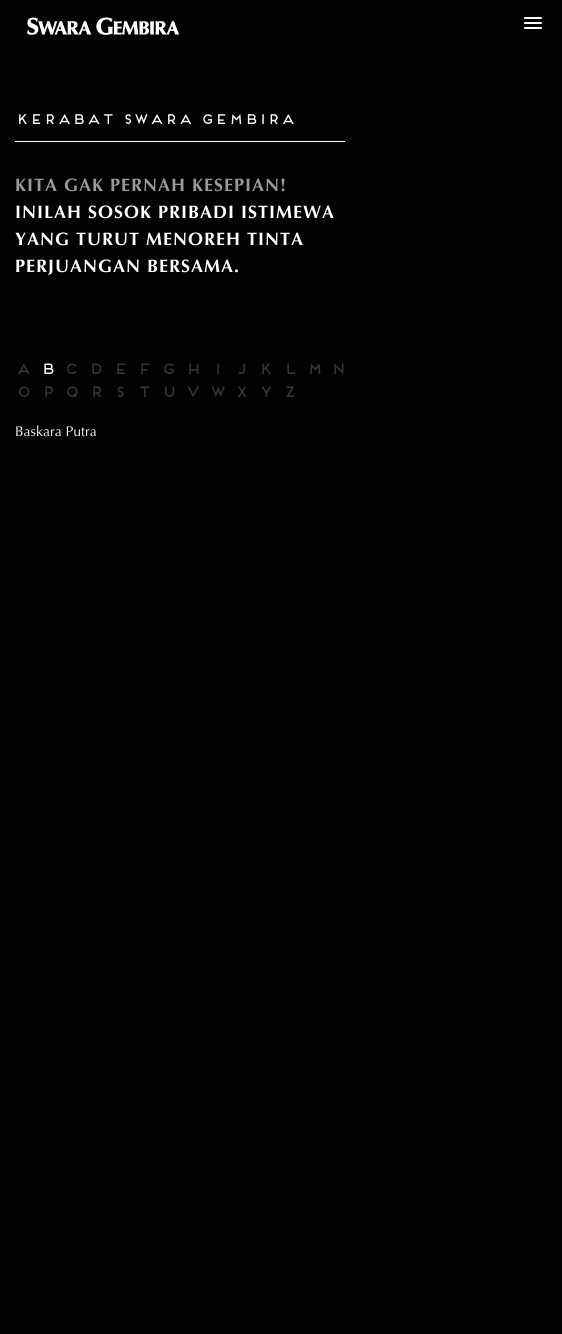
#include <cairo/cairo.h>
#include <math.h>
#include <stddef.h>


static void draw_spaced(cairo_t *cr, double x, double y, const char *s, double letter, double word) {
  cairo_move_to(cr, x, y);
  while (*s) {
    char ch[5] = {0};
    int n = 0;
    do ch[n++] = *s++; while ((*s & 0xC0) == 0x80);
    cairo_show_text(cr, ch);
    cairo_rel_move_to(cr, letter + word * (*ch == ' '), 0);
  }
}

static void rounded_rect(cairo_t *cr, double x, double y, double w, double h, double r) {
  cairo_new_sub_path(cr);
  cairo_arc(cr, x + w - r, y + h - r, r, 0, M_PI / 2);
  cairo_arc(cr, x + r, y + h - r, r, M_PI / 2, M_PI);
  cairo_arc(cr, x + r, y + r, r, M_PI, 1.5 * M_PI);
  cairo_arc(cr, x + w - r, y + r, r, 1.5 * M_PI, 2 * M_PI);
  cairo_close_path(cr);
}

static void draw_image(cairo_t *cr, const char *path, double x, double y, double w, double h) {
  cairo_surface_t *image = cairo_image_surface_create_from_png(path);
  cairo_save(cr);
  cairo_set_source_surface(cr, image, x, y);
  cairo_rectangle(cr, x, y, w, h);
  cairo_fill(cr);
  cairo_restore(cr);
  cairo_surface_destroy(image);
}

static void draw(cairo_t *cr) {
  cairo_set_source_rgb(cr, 2 / 255.0, 2 / 255.0, 2 / 255.0);
  cairo_paint(cr);
  draw_image(cr, "images/1.png", 27, 17, 153, 18);
  cairo_set_source_rgb(cr, 1, 1, 1);
  rounded_rect(cr, 524, 17, 18, 2, 1);
  cairo_fill(cr);
  rounded_rect(cr, 524, 22, 18, 2, 1);
  cairo_fill(cr);
  rounded_rect(cr, 524, 27, 18, 2, 1);
  cairo_fill(cr);
  cairo_rectangle(cr, 15, 141, 330, 1);
  cairo_fill(cr);
  cairo_select_font_face(cr, "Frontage", CAIRO_FONT_SLANT_NORMAL, CAIRO_FONT_WEIGHT_NORMAL);
  cairo_set_font_size(cr, 14);
  cairo_move_to(cr, 15, 124);
  cairo_show_text(cr, "KERABAT SWARA GEMBIRA");
  cairo_select_font_face(cr, "Optima", CAIRO_FONT_SLANT_NORMAL, CAIRO_FONT_WEIGHT_BOLD);
  cairo_set_font_size(cr, 18);
  cairo_set_source_rgb(cr, 154 / 255.0, 154 / 255.0, 154 / 255.0);
  draw_spaced(cr, 15, 191, "KITA GAK PERNAH KESEPIAN!", 1, 0);
  cairo_set_source_rgb(cr, 1, 1, 1);
  draw_spaced(cr, 15, 218, "INILAH SOSOK PRIBADI ISTIMEWA", 1, 0);
  draw_spaced(cr, 15, 245, "YANG TURUT MENOREH TINTA", 1, 0);
  draw_spaced(cr, 15, 272, "PERJUANGAN BERSAMA.", 1, 0);
  cairo_select_font_face(cr, "Frontage", CAIRO_FONT_SLANT_NORMAL, CAIRO_FONT_WEIGHT_NORMAL);
  cairo_set_font_size(cr, 15);
  cairo_set_source_rgb(cr, 55 / 255.0, 55 / 255.0, 55 / 255.0);
  cairo_move_to(cr, 15, 374);
  cairo_show_text(cr, "a");
  cairo_set_source_rgb(cr, 1, 1, 1);
  cairo_move_to(cr, 40, 374);
  cairo_show_text(cr, "b");
  cairo_set_source_rgb(cr, 55 / 255.0, 55 / 255.0, 55 / 255.0);
  cairo_move_to(cr, 64, 374);
  cairo_show_text(cr, "c");
  cairo_move_to(cr, 88, 374);
  cairo_show_text(cr, "d");
  cairo_move_to(cr, 113, 374);
  cairo_show_text(cr, "e");
  cairo_move_to(cr, 137, 374);
  cairo_show_text(cr, "f");
  cairo_move_to(cr, 161, 374);
  cairo_show_text(cr, "g");
  cairo_move_to(cr, 185, 374);
  cairo_show_text(cr, "h");
  cairo_move_to(cr, 213, 374);
  cairo_show_text(cr, "i");
  cairo_move_to(cr, 235, 374);
  cairo_show_text(cr, "j");
  cairo_move_to(cr, 258, 374);
  cairo_show_text(cr, "k");
  cairo_move_to(cr, 283, 374);
  cairo_show_text(cr, "l");
  cairo_move_to(cr, 306, 374);
  cairo_show_text(cr, "m");
  cairo_move_to(cr, 330, 374);
  cairo_show_text(cr, "n");
  cairo_move_to(cr, 16, 397);
  cairo_show_text(cr, "o");
  cairo_move_to(cr, 41, 397);
  cairo_show_text(cr, "p");
  cairo_move_to(cr, 64, 397);
  cairo_show_text(cr, "q");
  cairo_move_to(cr, 89, 397);
  cairo_show_text(cr, "r");
  cairo_move_to(cr, 114, 397);
  cairo_show_text(cr, "s");
  cairo_move_to(cr, 137, 397);
  cairo_show_text(cr, "t");
  cairo_move_to(cr, 161, 397);
  cairo_show_text(cr, "u");
  cairo_move_to(cr, 185, 397);
  cairo_show_text(cr, "v");
  cairo_move_to(cr, 209, 397);
  cairo_show_text(cr, "w x");
  cairo_move_to(cr, 259, 397);
  cairo_show_text(cr, "y");
  cairo_move_to(cr, 283, 397);
  cairo_show_text(cr, "z");
  cairo_select_font_face(cr, "Optima", CAIRO_FONT_SLANT_NORMAL, CAIRO_FONT_WEIGHT_NORMAL);
  cairo_set_font_size(cr, 14);
  cairo_set_source_rgb(cr, 1, 1, 1);
  cairo_move_to(cr, 15, 436);
  cairo_show_text(cr, "Baskara Putra");
}

int main(void) {
  cairo_surface_t *surface = cairo_image_surface_create(CAIRO_FORMAT_RGB24, 562, 1334);
  cairo_t *cr = cairo_create(surface);
  cairo_font_options_t *options = cairo_font_options_create();
  cairo_font_options_set_hint_metrics(options, CAIRO_HINT_METRICS_OFF);
  cairo_font_options_set_hint_style(options, CAIRO_HINT_STYLE_NONE);
  cairo_set_font_options(cr, options);
  cairo_set_miter_limit(cr, 4);
  draw(cr);
  cairo_surface_write_to_png(surface, "out.png");
  cairo_font_options_destroy(options);
  cairo_destroy(cr);
  cairo_surface_destroy(surface);
  return 0;
}
